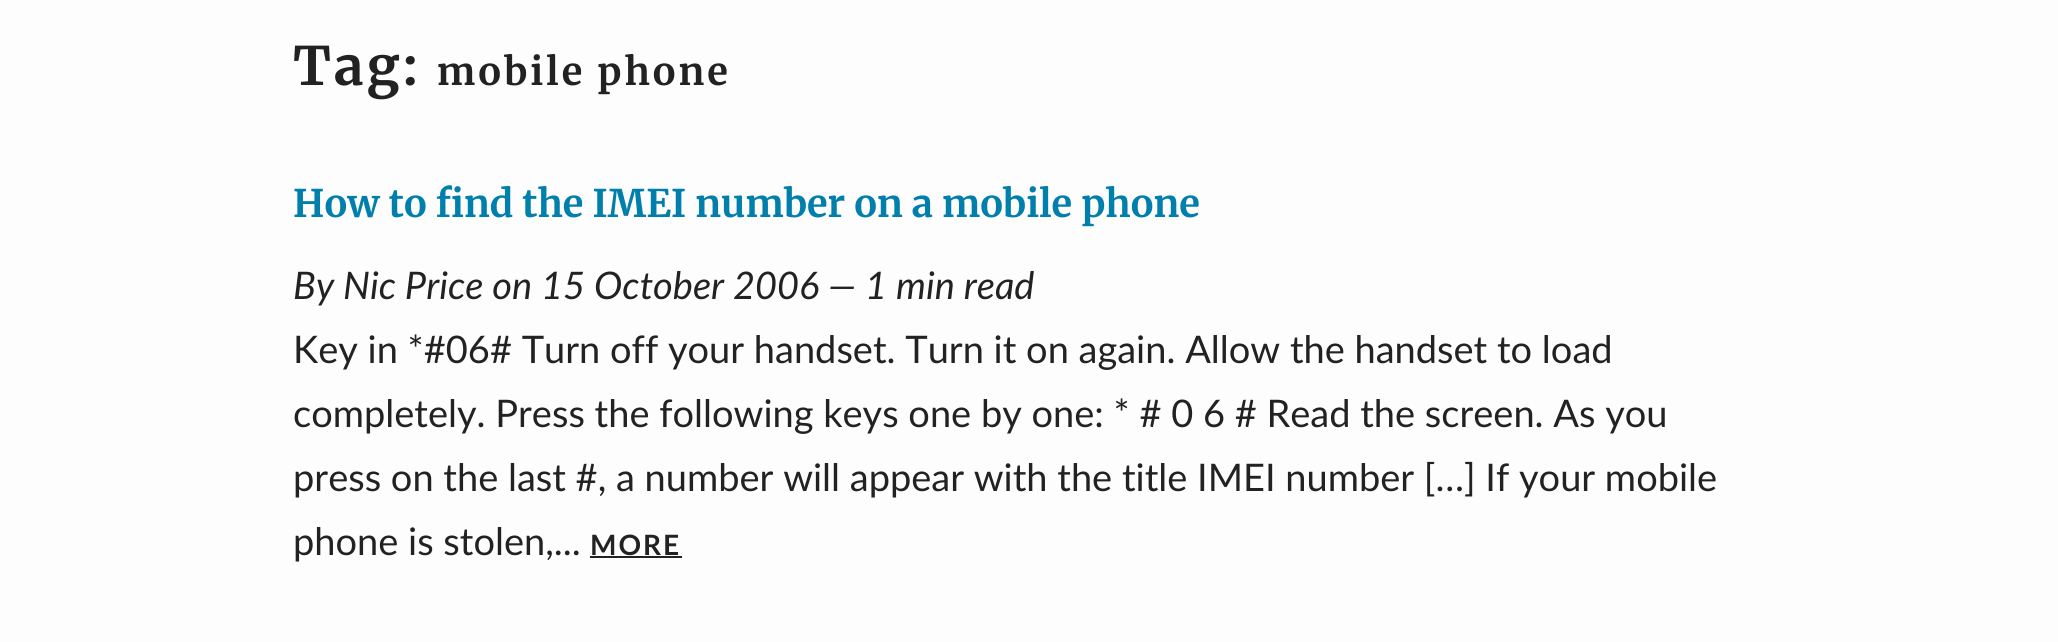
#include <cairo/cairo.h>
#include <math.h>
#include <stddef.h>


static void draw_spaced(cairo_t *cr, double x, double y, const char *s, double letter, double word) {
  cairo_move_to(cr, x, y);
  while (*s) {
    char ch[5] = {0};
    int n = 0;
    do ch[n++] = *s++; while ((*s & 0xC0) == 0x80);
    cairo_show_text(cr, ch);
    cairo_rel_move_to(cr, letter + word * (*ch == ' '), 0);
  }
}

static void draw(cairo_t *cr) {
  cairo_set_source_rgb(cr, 253 / 255.0, 253 / 255.0, 253 / 255.0);
  cairo_paint(cr);
  cairo_set_source_rgb(cr, 34 / 255.0, 34 / 255.0, 34 / 255.0);
  cairo_rectangle(cr, 590, 556, 92, 2);
  cairo_fill(cr);
  cairo_select_font_face(cr, "Merriweather", CAIRO_FONT_SLANT_NORMAL, CAIRO_FONT_WEIGHT_BOLD);
  cairo_set_font_size(cr, 53);
  draw_spaced(cr, 293, 85, "Tag:", 3, 0);
  cairo_set_font_size(cr, 38);
  draw_spaced(cr, 437, 85, "mobile phone", 3, 0);
  cairo_set_source_rgb(cr, 0, 127 / 255.0, 172 / 255.0);
  cairo_move_to(cr, 293, 217);
  cairo_show_text(cr, "How to find the IMEI number on a mobile phone");
  cairo_select_font_face(cr, "Lato", CAIRO_FONT_SLANT_ITALIC, CAIRO_FONT_WEIGHT_NORMAL);
  cairo_set_source_rgb(cr, 34 / 255.0, 34 / 255.0, 34 / 255.0);
  cairo_move_to(cr, 293, 299);
  cairo_show_text(cr, "By Nic Price on 15 October 2006 — 1 min read");
  cairo_select_font_face(cr, "Lato", CAIRO_FONT_SLANT_NORMAL, CAIRO_FONT_WEIGHT_NORMAL);
  cairo_move_to(cr, 293, 363);
  cairo_show_text(cr, "Key in *#06# Turn off your handset. Turn it on again. Allow the handset to load");
  cairo_move_to(cr, 293, 427);
  cairo_show_text(cr, "completely. Press the following keys one by one: * # 0 6 # Read the screen. As you");
  cairo_move_to(cr, 293, 491);
  cairo_show_text(cr, "press on the last #, a number will appear with the title IMEI number […] If your mobile");
  cairo_move_to(cr, 293, 555);
  cairo_show_text(cr, "phone is stolen,...");
  cairo_select_font_face(cr, "Lato", CAIRO_FONT_SLANT_NORMAL, CAIRO_FONT_WEIGHT_BOLD);
  cairo_set_font_size(cr, 28);
  draw_spaced(cr, 590, 555, "MORE", 2, 0);
}

int main(void) {
  cairo_surface_t *surface = cairo_image_surface_create(CAIRO_FORMAT_RGB24, 2058, 642);
  cairo_t *cr = cairo_create(surface);
  cairo_font_options_t *options = cairo_font_options_create();
  cairo_font_options_set_hint_metrics(options, CAIRO_HINT_METRICS_OFF);
  cairo_font_options_set_hint_style(options, CAIRO_HINT_STYLE_NONE);
  cairo_set_font_options(cr, options);
  cairo_set_miter_limit(cr, 4);
  draw(cr);
  cairo_surface_write_to_png(surface, "out.png");
  cairo_font_options_destroy(options);
  cairo_destroy(cr);
  cairo_surface_destroy(surface);
  return 0;
}
